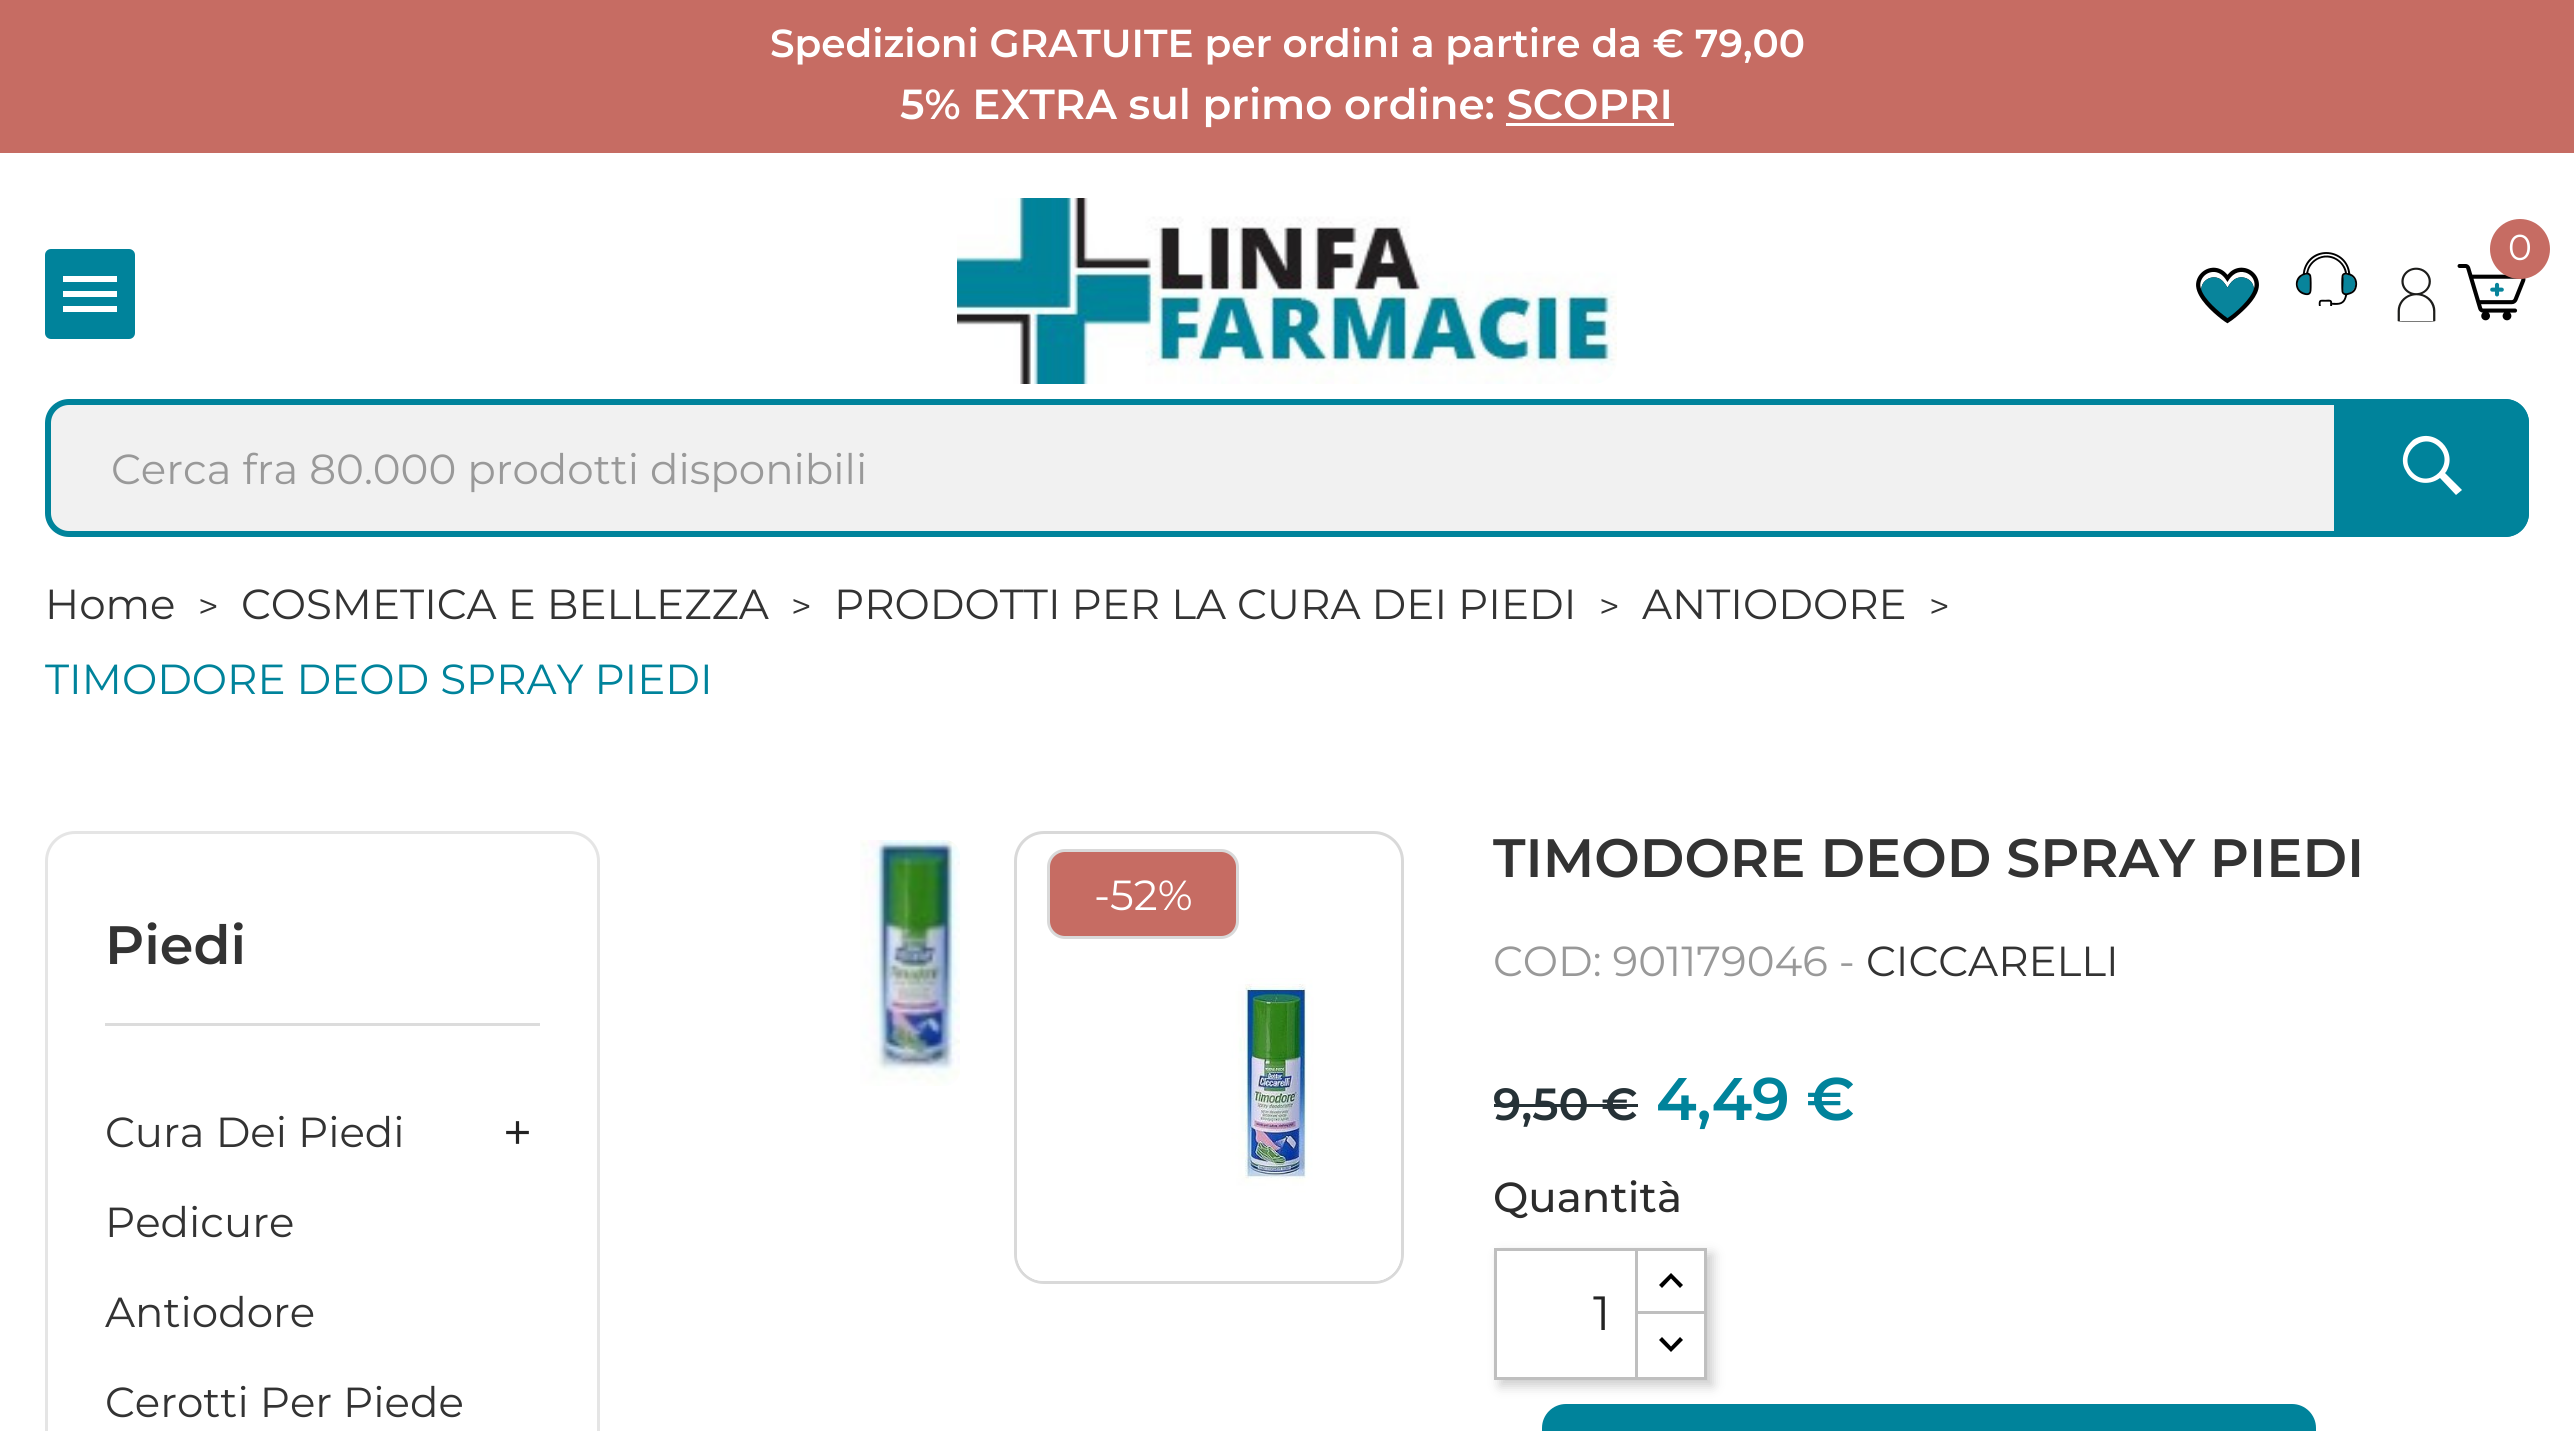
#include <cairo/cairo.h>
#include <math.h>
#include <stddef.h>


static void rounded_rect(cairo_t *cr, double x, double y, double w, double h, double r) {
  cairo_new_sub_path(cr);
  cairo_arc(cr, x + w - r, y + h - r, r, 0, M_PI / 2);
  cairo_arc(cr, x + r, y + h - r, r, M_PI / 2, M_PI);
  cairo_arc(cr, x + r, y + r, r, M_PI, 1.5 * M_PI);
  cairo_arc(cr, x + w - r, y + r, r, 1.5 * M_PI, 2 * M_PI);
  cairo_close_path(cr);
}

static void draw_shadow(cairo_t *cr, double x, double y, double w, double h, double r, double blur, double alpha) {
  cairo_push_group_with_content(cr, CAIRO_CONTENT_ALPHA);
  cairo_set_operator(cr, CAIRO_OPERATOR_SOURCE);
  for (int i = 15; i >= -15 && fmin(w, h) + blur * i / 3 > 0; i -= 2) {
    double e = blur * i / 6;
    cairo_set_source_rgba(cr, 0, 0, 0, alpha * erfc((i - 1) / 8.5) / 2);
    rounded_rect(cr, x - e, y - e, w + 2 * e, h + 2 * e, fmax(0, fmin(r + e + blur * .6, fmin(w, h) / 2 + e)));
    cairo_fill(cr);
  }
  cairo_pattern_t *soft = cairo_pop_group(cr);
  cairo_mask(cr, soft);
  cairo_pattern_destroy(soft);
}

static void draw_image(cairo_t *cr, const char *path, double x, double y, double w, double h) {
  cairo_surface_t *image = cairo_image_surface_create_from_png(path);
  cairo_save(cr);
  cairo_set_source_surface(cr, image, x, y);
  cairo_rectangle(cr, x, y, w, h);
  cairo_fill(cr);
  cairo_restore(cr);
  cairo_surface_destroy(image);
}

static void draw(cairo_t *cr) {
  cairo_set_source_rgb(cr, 1, 1, 1);
  cairo_paint(cr);
  cairo_set_source_rgb(cr, 198 / 255.0, 108 / 255.0, 99 / 255.0);
  cairo_rectangle(cr, 0, 0, 2574, 153);
  cairo_fill(cr);
  cairo_set_source_rgb(cr, 1, 1, 1);
  cairo_rectangle(cr, 1506, 123, 168, 3);
  cairo_fill(cr);
  cairo_set_source_rgb(cr, 0, 131 / 255.0, 155 / 255.0);
  rounded_rect(cr, 45, 249, 90, 90, 6);
  cairo_fill(cr);
  cairo_set_source_rgb(cr, 1, 1, 1);
  cairo_new_path(cr);
  cairo_move_to(cr, 63, 276);
  cairo_line_to(cr, 117, 276);
  cairo_line_to(cr, 117, 282);
  cairo_line_to(cr, 63, 282);
  cairo_close_path(cr);
  cairo_move_to(cr, 63, 297);
  cairo_line_to(cr, 63, 291);
  cairo_line_to(cr, 117, 291);
  cairo_line_to(cr, 117, 297);
  cairo_close_path(cr);
  cairo_move_to(cr, 63, 312);
  cairo_line_to(cr, 63, 306);
  cairo_line_to(cr, 117, 306);
  cairo_line_to(cr, 117, 312);
  cairo_close_path(cr);
  cairo_fill(cr);
  draw_image(cr, "images/1.png", 957, 198, 660, 186);
  draw_image(cr, "images/2.png", 2457, 264, 69, 57);
  cairo_set_source_rgb(cr, 198 / 255.0, 108 / 255.0, 99 / 255.0);
  cairo_arc(cr, 2520, 249, 30, 0, 2 * M_PI);
  cairo_fill(cr);
  draw_image(cr, "images/3.png", 2196, 267, 63, 57);
  draw_image(cr, "images/4.png", 2295, 252, 63, 54);
  draw_image(cr, "images/5.png", 2397, 267, 39, 55);
  cairo_set_source_rgb(cr, 241 / 255.0, 241 / 255.0, 241 / 255.0);
  rounded_rect(cr, 48, 402, 2478, 132, 21);
  cairo_fill_preserve(cr);
  cairo_set_source_rgb(cr, 0, 131 / 255.0, 155 / 255.0);
  cairo_set_line_width(cr, 6);
  cairo_stroke(cr);
  cairo_new_path(cr);
  cairo_move_to(cr, 2334, 399);
  cairo_line_to(cr, 2505, 399);
  cairo_curve_to(cr, 2518.5, 399, 2529, 409.5, 2529, 423);
  cairo_line_to(cr, 2529, 513);
  cairo_curve_to(cr, 2529, 526.5, 2518.5, 537, 2505, 537);
  cairo_line_to(cr, 2334, 537);
  cairo_close_path(cr);
  cairo_fill(cr);
  cairo_set_source_rgb(cr, 1, 1, 1);
  cairo_new_path(cr);
  cairo_move_to(cr, 2446, 472);
  cairo_line_to(cr, 2445, 473);
  cairo_line_to(cr, 2462, 490);
  cairo_line_to(cr, 2456, 495);
  cairo_line_to(cr, 2440, 478);
  cairo_curve_to(cr, 2428, 487, 2412, 483, 2406, 471);
  cairo_curve_to(cr, 2402, 465, 2402, 457, 2405, 451);
  cairo_curve_to(cr, 2406, 447, 2410, 443, 2413, 440);
  cairo_curve_to(cr, 2434, 426, 2459, 451, 2446, 472);
  cairo_close_path(cr);
  cairo_move_to(cr, 2439, 447);
  cairo_curve_to(cr, 2422, 430, 2396, 456, 2413, 473);
  cairo_curve_to(cr, 2430, 490, 2456, 464, 2439, 447);
  cairo_close_path(cr);
  cairo_fill(cr);
  rounded_rect(cr, 46.5, 832.5, 552, 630, 28.5);
  cairo_set_source_rgb(cr, 229 / 255.0, 229 / 255.0, 229 / 255.0);
  cairo_set_line_width(cr, 3);
  cairo_stroke(cr);
  cairo_set_source_rgb(cr, 220 / 255.0, 220 / 255.0, 220 / 255.0);
  cairo_rectangle(cr, 105, 1023, 435, 3);
  cairo_fill(cr);
  draw_image(cr, "images/6.png", 506, 1121, 23, 23);
  draw_image(cr, "images/7.png", 860, 840, 100, 246);
  rounded_rect(cr, 1015.5, 832.5, 387, 450, 28.5);
  cairo_set_source_rgb(cr, 217 / 255.0, 217 / 255.0, 217 / 255.0);
  cairo_stroke(cr);
  cairo_set_source_rgb(cr, 1, 1, 1);
  cairo_new_path(cr);
  cairo_move_to(cr, 1041, 897);
  cairo_line_to(cr, 1377, 897);
  cairo_curve_to(cr, 1390.5, 897, 1401, 907.5, 1401, 921);
  cairo_line_to(cr, 1401, 1254);
  cairo_curve_to(cr, 1401, 1269, 1389, 1281, 1374, 1281);
  cairo_line_to(cr, 1044, 1281);
  cairo_curve_to(cr, 1029, 1281, 1017, 1269, 1017, 1254);
  cairo_line_to(cr, 1017, 921);
  cairo_curve_to(cr, 1017, 907.5, 1027.5, 897, 1041, 897);
  cairo_close_path(cr);
  cairo_fill(cr);
  cairo_set_source_rgb(cr, 198 / 255.0, 108 / 255.0, 99 / 255.0);
  rounded_rect(cr, 1048.5, 850.5, 189, 87, 16.5);
  cairo_fill_preserve(cr);
  cairo_set_source_rgb(cr, 217 / 255.0, 217 / 255.0, 217 / 255.0);
  cairo_stroke(cr);
  draw_image(cr, "images/8.png", 1019, 978, 380, 302);
  cairo_set_source_rgb(cr, 38 / 255.0, 50 / 255.0, 55 / 255.0);
  cairo_rectangle(cr, 1494, 1104, 144, 3);
  cairo_fill(cr);
  cairo_save(cr);
  cairo_set_fill_rule(cr, CAIRO_FILL_RULE_EVEN_ODD);
  cairo_new_path(cr);
  cairo_move_to(cr, 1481, 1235);
  cairo_line_to(cr, 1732, 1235);
  cairo_line_to(cr, 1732, 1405);
  cairo_line_to(cr, 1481, 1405);
  cairo_close_path(cr);
  cairo_move_to(cr, 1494, 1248);
  cairo_line_to(cr, 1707, 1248);
  cairo_line_to(cr, 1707, 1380);
  cairo_line_to(cr, 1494, 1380);
  cairo_close_path(cr);
  cairo_clip(cr);
  cairo_set_source_rgb(cr, 0, 0, 0);
  draw_shadow(cr, 1500, 1254, 213, 132, 0, 6, 0.2);
  cairo_restore(cr);
  cairo_rectangle(cr, 1636.5, 1249.5, 69, 66);
  cairo_set_source_rgb(cr, 191 / 255.0, 191 / 255.0, 191 / 255.0);
  cairo_stroke(cr);
  cairo_set_source_rgb(cr, 1, 1, 1);
  cairo_rectangle(cr, 1638, 1314, 66, 3);
  cairo_fill(cr);
  cairo_rectangle(cr, 1636.5, 1312.5, 69, 66);
  cairo_set_source_rgb(cr, 191 / 255.0, 191 / 255.0, 191 / 255.0);
  cairo_stroke(cr);
  cairo_rectangle(cr, 1495.5, 1249.5, 141, 129);
  cairo_stroke(cr);
  cairo_set_source_rgb(cr, 0, 0, 0);
  cairo_new_path(cr);
  cairo_move_to(cr, 1671, 1273);
  cairo_line_to(cr, 1683, 1285);
  cairo_line_to(cr, 1680, 1288);
  cairo_line_to(cr, 1671, 1278.5);
  cairo_line_to(cr, 1662, 1288);
  cairo_line_to(cr, 1659, 1285);
  cairo_close_path(cr);
  cairo_fill(cr);
  cairo_new_path(cr);
  cairo_move_to(cr, 1680, 1337);
  cairo_line_to(cr, 1683, 1340);
  cairo_line_to(cr, 1671, 1352);
  cairo_line_to(cr, 1659, 1340);
  cairo_line_to(cr, 1662, 1337);
  cairo_line_to(cr, 1671, 1346.5);
  cairo_close_path(cr);
  cairo_fill(cr);
  cairo_set_source_rgb(cr, 0, 131 / 255.0, 155 / 255.0);
  rounded_rect(cr, 1542, 1404, 774, 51, 24);
  cairo_fill(cr);
  cairo_select_font_face(cr, "Montserrat SemiBold", CAIRO_FONT_SLANT_NORMAL, CAIRO_FONT_WEIGHT_NORMAL);
  cairo_set_font_size(cr, 39);
  cairo_set_source_rgb(cr, 1, 1, 1);
  cairo_move_to(cr, 770, 57);
  cairo_show_text(cr, "Spedizioni GRATUITE per ordini a partire da € 79,00");
  cairo_set_font_size(cr, 42);
  cairo_move_to(cr, 900, 119);
  cairo_show_text(cr, "5% EXTRA sul primo ordine: SCOPRI");
  cairo_select_font_face(cr, "Montserrat", CAIRO_FONT_SLANT_NORMAL, CAIRO_FONT_WEIGHT_NORMAL);
  cairo_set_font_size(cr, 36);
  cairo_move_to(cr, 2508, 260);
  cairo_show_text(cr, "0");
  cairo_set_font_size(cr, 42);
  cairo_set_source_rgb(cr, 153 / 255.0, 153 / 255.0, 153 / 255.0);
  cairo_move_to(cr, 111, 484);
  cairo_show_text(cr, "Cerca fra 80.000 prodotti disponibili");
  cairo_set_source_rgb(cr, 51 / 255.0, 51 / 255.0, 51 / 255.0);
  cairo_move_to(cr, 45, 619);
  cairo_show_text(cr, "Home");
  cairo_set_font_size(cr, 36);
  cairo_move_to(cr, 198, 619);
  cairo_show_text(cr, ">");
  cairo_set_font_size(cr, 42);
  cairo_move_to(cr, 241, 619);
  cairo_show_text(cr, "COSMETICA E BELLEZZA");
  cairo_set_font_size(cr, 36);
  cairo_move_to(cr, 791, 619);
  cairo_show_text(cr, ">");
  cairo_set_font_size(cr, 42);
  cairo_move_to(cr, 834, 619);
  cairo_show_text(cr, "PRODOTTI PER LA CURA DEI PIEDI");
  cairo_set_font_size(cr, 36);
  cairo_move_to(cr, 1599, 619);
  cairo_show_text(cr, ">");
  cairo_set_font_size(cr, 42);
  cairo_move_to(cr, 1642, 619);
  cairo_show_text(cr, "ANTIODORE");
  cairo_set_font_size(cr, 36);
  cairo_move_to(cr, 1929, 619);
  cairo_show_text(cr, ">");
  cairo_set_font_size(cr, 42);
  cairo_set_source_rgb(cr, 0, 131 / 255.0, 155 / 255.0);
  cairo_move_to(cr, 45, 694);
  cairo_show_text(cr, "TIMODORE DEOD SPRAY PIEDI");
  cairo_select_font_face(cr, "Montserrat SemiBold", CAIRO_FONT_SLANT_NORMAL, CAIRO_FONT_WEIGHT_NORMAL);
  cairo_set_font_size(cr, 54);
  cairo_set_source_rgb(cr, 51 / 255.0, 51 / 255.0, 51 / 255.0);
  cairo_move_to(cr, 105, 964);
  cairo_show_text(cr, "Piedi");
  cairo_select_font_face(cr, "Montserrat", CAIRO_FONT_SLANT_NORMAL, CAIRO_FONT_WEIGHT_NORMAL);
  cairo_set_font_size(cr, 42);
  cairo_move_to(cr, 105, 1147);
  cairo_show_text(cr, "Cura Dei Piedi");
  cairo_move_to(cr, 105, 1237);
  cairo_show_text(cr, "Pedicure");
  cairo_move_to(cr, 105, 1327);
  cairo_show_text(cr, "Antiodore");
  cairo_move_to(cr, 105, 1417);
  cairo_show_text(cr, "Cerotti Per Piede");
  cairo_set_source_rgb(cr, 1, 1, 1);
  cairo_move_to(cr, 1094, 910);
  cairo_show_text(cr, "-52%");
  cairo_select_font_face(cr, "Montserrat SemiBold", CAIRO_FONT_SLANT_NORMAL, CAIRO_FONT_WEIGHT_NORMAL);
  cairo_set_font_size(cr, 54);
  cairo_set_source_rgb(cr, 51 / 255.0, 51 / 255.0, 51 / 255.0);
  cairo_move_to(cr, 1493, 877);
  cairo_show_text(cr, "TIMODORE DEOD SPRAY PIEDI");
  cairo_select_font_face(cr, "Montserrat", CAIRO_FONT_SLANT_NORMAL, CAIRO_FONT_WEIGHT_NORMAL);
  cairo_set_font_size(cr, 42);
  cairo_set_source_rgb(cr, 153 / 255.0, 153 / 255.0, 153 / 255.0);
  cairo_move_to(cr, 1493, 976);
  cairo_show_text(cr, "COD: 901179046 -");
  cairo_set_source_rgb(cr, 51 / 255.0, 51 / 255.0, 51 / 255.0);
  cairo_move_to(cr, 1866, 976);
  cairo_show_text(cr, "CICCARELLI");
  cairo_select_font_face(cr, "Montserrat SemiBold", CAIRO_FONT_SLANT_NORMAL, CAIRO_FONT_WEIGHT_NORMAL);
  cairo_set_font_size(cr, 45);
  cairo_set_source_rgb(cr, 38 / 255.0, 50 / 255.0, 55 / 255.0);
  cairo_move_to(cr, 1493, 1120);
  cairo_show_text(cr, "9,50 €");
  cairo_set_font_size(cr, 60);
  cairo_set_source_rgb(cr, 0, 131 / 255.0, 155 / 255.0);
  cairo_move_to(cr, 1656, 1120);
  cairo_show_text(cr, "4,49 €");
  cairo_select_font_face(cr, "Montserrat Medium", CAIRO_FONT_SLANT_NORMAL, CAIRO_FONT_WEIGHT_NORMAL);
  cairo_set_font_size(cr, 42);
  cairo_set_source_rgb(cr, 44 / 255.0, 44 / 255.0, 44 / 255.0);
  cairo_move_to(cr, 1493, 1212);
  cairo_show_text(cr, "Quantità");
  cairo_select_font_face(cr, "Montserrat", CAIRO_FONT_SLANT_NORMAL, CAIRO_FONT_WEIGHT_NORMAL);
  cairo_set_font_size(cr, 48);
  cairo_set_source_rgb(cr, 35 / 255.0, 35 / 255.0, 35 / 255.0);
  cairo_move_to(cr, 1593, 1330);
  cairo_show_text(cr, "1");
}

int main(void) {
  cairo_surface_t *surface = cairo_image_surface_create(CAIRO_FORMAT_RGB24, 2574, 1431);
  cairo_t *cr = cairo_create(surface);
  cairo_font_options_t *options = cairo_font_options_create();
  cairo_font_options_set_hint_metrics(options, CAIRO_HINT_METRICS_OFF);
  cairo_font_options_set_hint_style(options, CAIRO_HINT_STYLE_NONE);
  cairo_set_font_options(cr, options);
  cairo_set_miter_limit(cr, 4);
  draw(cr);
  cairo_surface_write_to_png(surface, "out.png");
  cairo_font_options_destroy(options);
  cairo_destroy(cr);
  cairo_surface_destroy(surface);
  return 0;
}
